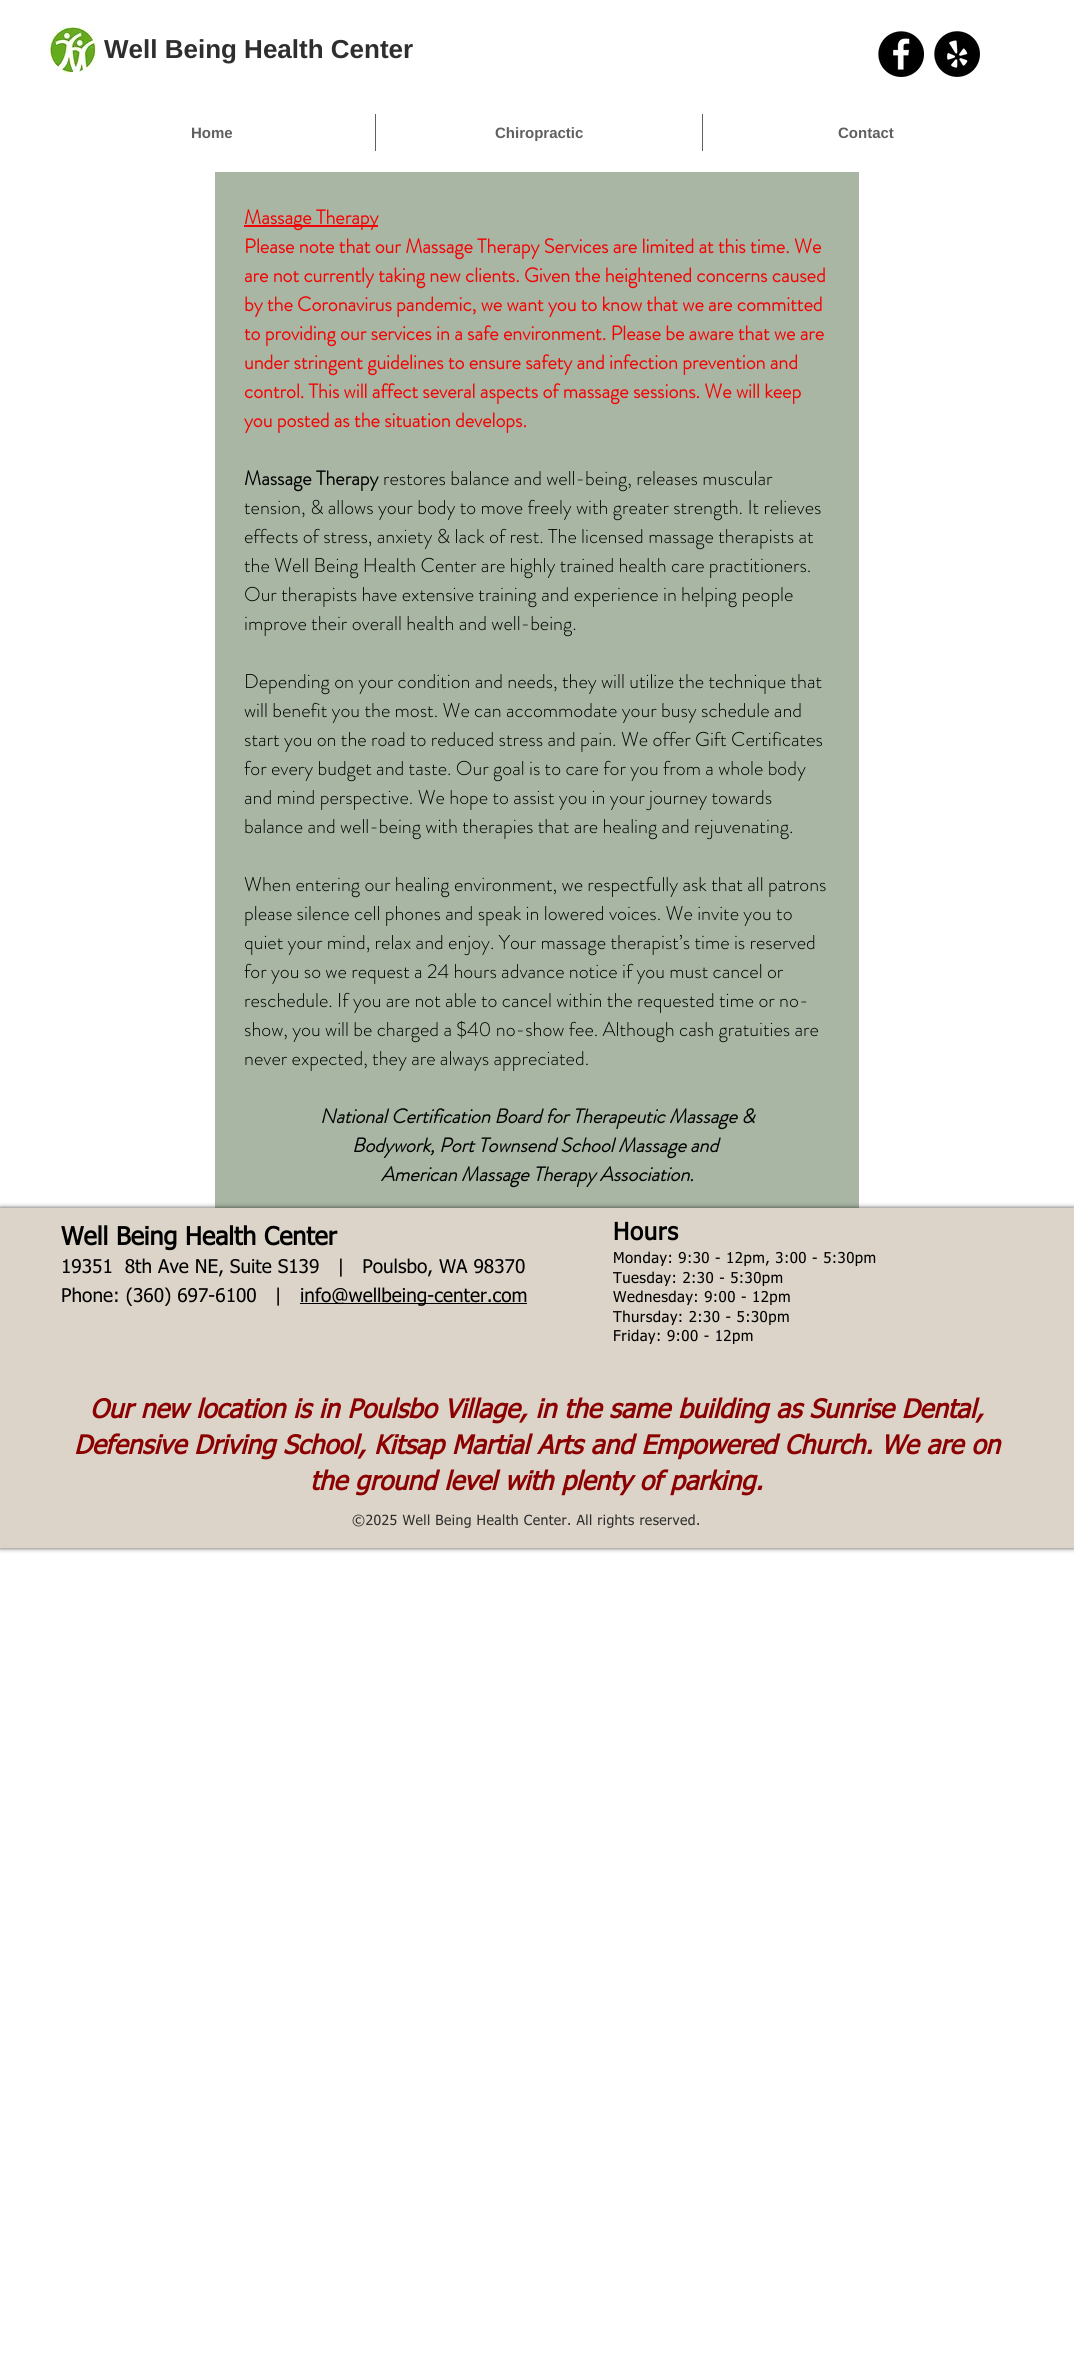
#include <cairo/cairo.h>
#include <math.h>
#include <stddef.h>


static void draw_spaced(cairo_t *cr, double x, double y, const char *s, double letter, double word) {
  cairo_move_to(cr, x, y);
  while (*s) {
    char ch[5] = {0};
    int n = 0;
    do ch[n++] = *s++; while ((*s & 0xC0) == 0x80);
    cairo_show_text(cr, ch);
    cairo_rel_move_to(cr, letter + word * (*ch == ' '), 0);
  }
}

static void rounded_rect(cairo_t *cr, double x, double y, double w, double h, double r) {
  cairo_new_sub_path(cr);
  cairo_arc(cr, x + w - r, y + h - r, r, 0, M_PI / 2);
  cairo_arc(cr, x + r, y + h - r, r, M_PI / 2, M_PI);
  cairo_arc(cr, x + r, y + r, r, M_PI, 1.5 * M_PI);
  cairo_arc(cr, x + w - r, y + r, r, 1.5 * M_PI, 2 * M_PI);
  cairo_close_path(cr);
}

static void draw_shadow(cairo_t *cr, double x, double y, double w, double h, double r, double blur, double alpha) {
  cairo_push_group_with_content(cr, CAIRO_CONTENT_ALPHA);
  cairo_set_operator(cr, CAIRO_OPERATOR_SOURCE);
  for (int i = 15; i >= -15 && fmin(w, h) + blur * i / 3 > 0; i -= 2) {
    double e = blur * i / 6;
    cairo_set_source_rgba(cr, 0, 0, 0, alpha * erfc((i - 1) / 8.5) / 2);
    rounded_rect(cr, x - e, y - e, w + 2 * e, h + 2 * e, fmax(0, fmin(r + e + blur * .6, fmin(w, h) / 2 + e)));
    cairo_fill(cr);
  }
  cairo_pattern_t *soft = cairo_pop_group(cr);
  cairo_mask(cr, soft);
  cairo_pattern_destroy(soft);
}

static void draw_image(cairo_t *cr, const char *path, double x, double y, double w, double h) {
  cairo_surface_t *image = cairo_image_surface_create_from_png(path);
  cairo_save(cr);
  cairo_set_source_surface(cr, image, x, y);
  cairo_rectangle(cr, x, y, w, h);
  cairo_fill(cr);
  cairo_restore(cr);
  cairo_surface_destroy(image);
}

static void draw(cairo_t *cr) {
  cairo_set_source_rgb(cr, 1, 1, 1);
  cairo_paint(cr);
  draw_image(cr, "images/1.png", 48, 24, 48, 50);
  draw_image(cr, "images/2.png", 878, 31, 46, 46);
  draw_image(cr, "images/3.png", 934, 31, 46, 46);
  cairo_set_source_rgb(cr, 96 / 255.0, 96 / 255.0, 96 / 255.0);
  cairo_rectangle(cr, 375, 114, 1, 37);
  cairo_fill(cr);
  cairo_rectangle(cr, 702, 114, 1, 37);
  cairo_fill(cr);
  cairo_set_source_rgb(cr, 169 / 255.0, 182 / 255.0, 164 / 255.0);
  cairo_rectangle(cr, 215, 172, 644, 1036);
  cairo_fill(cr);
  cairo_set_source_rgb(cr, 242 / 255.0, 5 / 255.0, 5 / 255.0);
  cairo_rectangle(cr, 244, 225, 134, 2);
  cairo_fill(cr);
  cairo_set_source_rgb(cr, 0, 0, 0);
  draw_shadow(cr, 0, 1208, 1074, 340, 0, 2.5, 0.7);
  cairo_set_source_rgb(cr, 220 / 255.0, 212 / 255.0, 200 / 255.0);
  cairo_rectangle(cr, 0, 1208, 1074, 340);
  cairo_fill(cr);
  cairo_set_source_rgb(cr, 0, 0, 0);
  cairo_rectangle(cr, 300, 1303, 227, 1);
  cairo_fill(cr);
  cairo_select_font_face(cr, "Liberation Sans", CAIRO_FONT_SLANT_NORMAL, CAIRO_FONT_WEIGHT_BOLD);
  cairo_set_font_size(cr, 26);
  cairo_set_source_rgb(cr, 47 / 255.0, 46 / 255.0, 46 / 255.0);
  cairo_move_to(cr, 104, 58);
  cairo_show_text(cr, "Well Being Health Center");
  cairo_set_font_size(cr, 15);
  cairo_set_source_rgb(cr, 96 / 255.0, 96 / 255.0, 96 / 255.0);
  cairo_move_to(cr, 191, 138);
  cairo_show_text(cr, "Home");
  cairo_move_to(cr, 495, 138);
  cairo_show_text(cr, "Chiropractic");
  cairo_move_to(cr, 838, 138);
  cairo_show_text(cr, "Contact");
  cairo_select_font_face(cr, "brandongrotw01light", CAIRO_FONT_SLANT_NORMAL, CAIRO_FONT_WEIGHT_BOLD);
  cairo_set_font_size(cr, 20);
  cairo_set_source_rgb(cr, 242 / 255.0, 5 / 255.0, 5 / 255.0);
  cairo_move_to(cr, 244, 224);
  cairo_show_text(cr, "Massage Therapy");
  cairo_move_to(cr, 244, 253);
  cairo_show_text(cr, "Please note that our Massage Therapy Services are limited at this time. We");
  cairo_move_to(cr, 244, 282);
  cairo_show_text(cr, "are not currently taking new clients. Given the heightened concerns caused");
  cairo_move_to(cr, 244, 311);
  cairo_show_text(cr, "by the Coronavirus pandemic, we want you to know that we are committed");
  cairo_move_to(cr, 244, 340);
  cairo_show_text(cr, "to providing our services in a safe environment. Please be aware that we are");
  cairo_move_to(cr, 244, 369);
  cairo_show_text(cr, "under stringent guidelines to ensure safety and infection prevention and");
  cairo_move_to(cr, 244, 398);
  cairo_show_text(cr, "control. This will affect several aspects of massage sessions. We will keep");
  cairo_move_to(cr, 244, 427);
  cairo_show_text(cr, "you posted as the situation develops.");
  cairo_set_source_rgb(cr, 0, 0, 0);
  cairo_move_to(cr, 244, 485);
  cairo_show_text(cr, "Massage Therapy");
  cairo_select_font_face(cr, "brandongrotw01light Light", CAIRO_FONT_SLANT_NORMAL, CAIRO_FONT_WEIGHT_NORMAL);
  cairo_move_to(cr, 383, 485);
  cairo_show_text(cr, "restores balance and well-being, releases muscular");
  cairo_move_to(cr, 244, 514);
  cairo_show_text(cr, "tension, & allows your body to move freely with greater strength. It relieves");
  cairo_move_to(cr, 244, 543);
  cairo_show_text(cr, "effects of stress, anxiety & lack of rest. The licensed massage therapists at");
  cairo_move_to(cr, 244, 572);
  cairo_show_text(cr, "the Well Being Health Center are highly trained health care practitioners.");
  cairo_move_to(cr, 244, 601);
  cairo_show_text(cr, "Our therapists have extensive training and experience in helping people");
  cairo_move_to(cr, 244, 630);
  cairo_show_text(cr, "improve their overall health and well-being.");
  cairo_move_to(cr, 244, 688);
  cairo_show_text(cr, "Depending on your condition and needs, they will utilize the technique that");
  cairo_move_to(cr, 244, 717);
  cairo_show_text(cr, "will benefit you the most. We can accommodate your busy schedule and");
  cairo_move_to(cr, 244, 746);
  cairo_show_text(cr, "start you on the road to reduced stress and pain. We offer Gift Certificates");
  cairo_move_to(cr, 244, 775);
  cairo_show_text(cr, "for every budget and taste. Our goal is to care for you from a whole body");
  cairo_move_to(cr, 244, 804);
  cairo_show_text(cr, "and mind perspective. We hope to assist you in your journey towards");
  cairo_move_to(cr, 244, 833);
  cairo_show_text(cr, "balance and well-being with therapies that are healing and rejuvenating.");
  cairo_move_to(cr, 244, 891);
  cairo_show_text(cr, "When entering our healing environment, we respectfully ask that all patrons");
  cairo_move_to(cr, 244, 920);
  cairo_show_text(cr, "please silence cell phones and speak in lowered voices. We invite you to");
  cairo_move_to(cr, 244, 949);
  cairo_show_text(cr, "quiet your mind, relax and enjoy. Your massage therapist’s time is reserved");
  cairo_move_to(cr, 244, 978);
  cairo_show_text(cr, "for you so we request a 24 hours advance notice if you must cancel or");
  cairo_move_to(cr, 244, 1007);
  cairo_show_text(cr, "reschedule. If you are not able to cancel within the requested time or no-");
  cairo_move_to(cr, 244, 1036);
  cairo_show_text(cr, "show, you will be charged a $40 no-show fee. Although cash gratuities are");
  cairo_move_to(cr, 244, 1065);
  cairo_show_text(cr, "never expected, they are always appreciated.");
  cairo_select_font_face(cr, "brandongrotw01light", CAIRO_FONT_SLANT_ITALIC, CAIRO_FONT_WEIGHT_BOLD);
  cairo_move_to(cr, 320, 1123);
  cairo_show_text(cr, "National Certification Board for Therapeutic Massage &");
  cairo_move_to(cr, 352, 1152);
  cairo_show_text(cr, "Bodywork, Port Townsend School Massage and");
  cairo_move_to(cr, 381, 1181);
  cairo_show_text(cr, "American Massage Therapy Association.");
  cairo_select_font_face(cr, "tahoma", CAIRO_FONT_SLANT_NORMAL, CAIRO_FONT_WEIGHT_BOLD);
  cairo_set_font_size(cr, 25);
  cairo_move_to(cr, 61, 1245);
  cairo_show_text(cr, "Well Being Health Center");
  cairo_select_font_face(cr, "tahoma", CAIRO_FONT_SLANT_NORMAL, CAIRO_FONT_WEIGHT_NORMAL);
  cairo_set_font_size(cr, 19);
  cairo_move_to(cr, 61, 1273);
  cairo_show_text(cr, "19351  8th Ave NE, Suite S139   |   Poulsbo, WA 98370");
  cairo_move_to(cr, 61, 1302);
  cairo_show_text(cr, "Phone: (360) 697-6100   |");
  cairo_move_to(cr, 300, 1302);
  cairo_show_text(cr, "info@wellbeing-center.com");
  cairo_select_font_face(cr, "tahoma", CAIRO_FONT_SLANT_NORMAL, CAIRO_FONT_WEIGHT_BOLD);
  cairo_set_font_size(cr, 24);
  draw_spaced(cr, 613, 1240, "Hours", 0.75, 0);
  cairo_select_font_face(cr, "tahoma", CAIRO_FONT_SLANT_NORMAL, CAIRO_FONT_WEIGHT_NORMAL);
  cairo_set_font_size(cr, 15);
  draw_spaced(cr, 613, 1263, "Monday: 9:30 - 12pm, 3:00 - 5:30pm", 0.45, 0);
  draw_spaced(cr, 613, 1283, "Tuesday: 2:30 - 5:30pm", 0.45, 0);
  draw_spaced(cr, 613, 1302, "Wednesday: 9:00 - 12pm", 0.45, 0);
  draw_spaced(cr, 613, 1322, "Thursday: 2:30 - 5:30pm", 0.45, 0);
  draw_spaced(cr, 613, 1341, "Friday: 9:00 - 12pm", 0.45, 0);
  cairo_select_font_face(cr, "tahoma", CAIRO_FONT_SLANT_ITALIC, CAIRO_FONT_WEIGHT_BOLD);
  cairo_set_font_size(cr, 26);
  cairo_set_source_rgb(cr, 139 / 255.0, 0, 0);
  cairo_move_to(cr, 90, 1418);
  cairo_show_text(cr, "Our new location is in Poulsbo Village, in the same building as Sunrise Dental,");
  cairo_move_to(cr, 74, 1454);
  cairo_show_text(cr, "Defensive Driving School, Kitsap Martial Arts and Empowered Church. We are on");
  cairo_move_to(cr, 310, 1490);
  cairo_show_text(cr, "the ground level with plenty of parking.");
  cairo_select_font_face(cr, "tahoma", CAIRO_FONT_SLANT_NORMAL, CAIRO_FONT_WEIGHT_NORMAL);
  cairo_set_font_size(cr, 14);
  cairo_set_source_rgb(cr, 47 / 255.0, 46 / 255.0, 46 / 255.0);
  draw_spaced(cr, 352, 1525, "©2025 Well Being Health Center. All rights reserved.", 0.42, 0);
}

int main(void) {
  cairo_surface_t *surface = cairo_image_surface_create(CAIRO_FORMAT_RGB24, 1074, 2366);
  cairo_t *cr = cairo_create(surface);
  cairo_font_options_t *options = cairo_font_options_create();
  cairo_font_options_set_hint_metrics(options, CAIRO_HINT_METRICS_OFF);
  cairo_font_options_set_hint_style(options, CAIRO_HINT_STYLE_NONE);
  cairo_set_font_options(cr, options);
  cairo_set_miter_limit(cr, 4);
  draw(cr);
  cairo_surface_write_to_png(surface, "out.png");
  cairo_font_options_destroy(options);
  cairo_destroy(cr);
  cairo_surface_destroy(surface);
  return 0;
}
